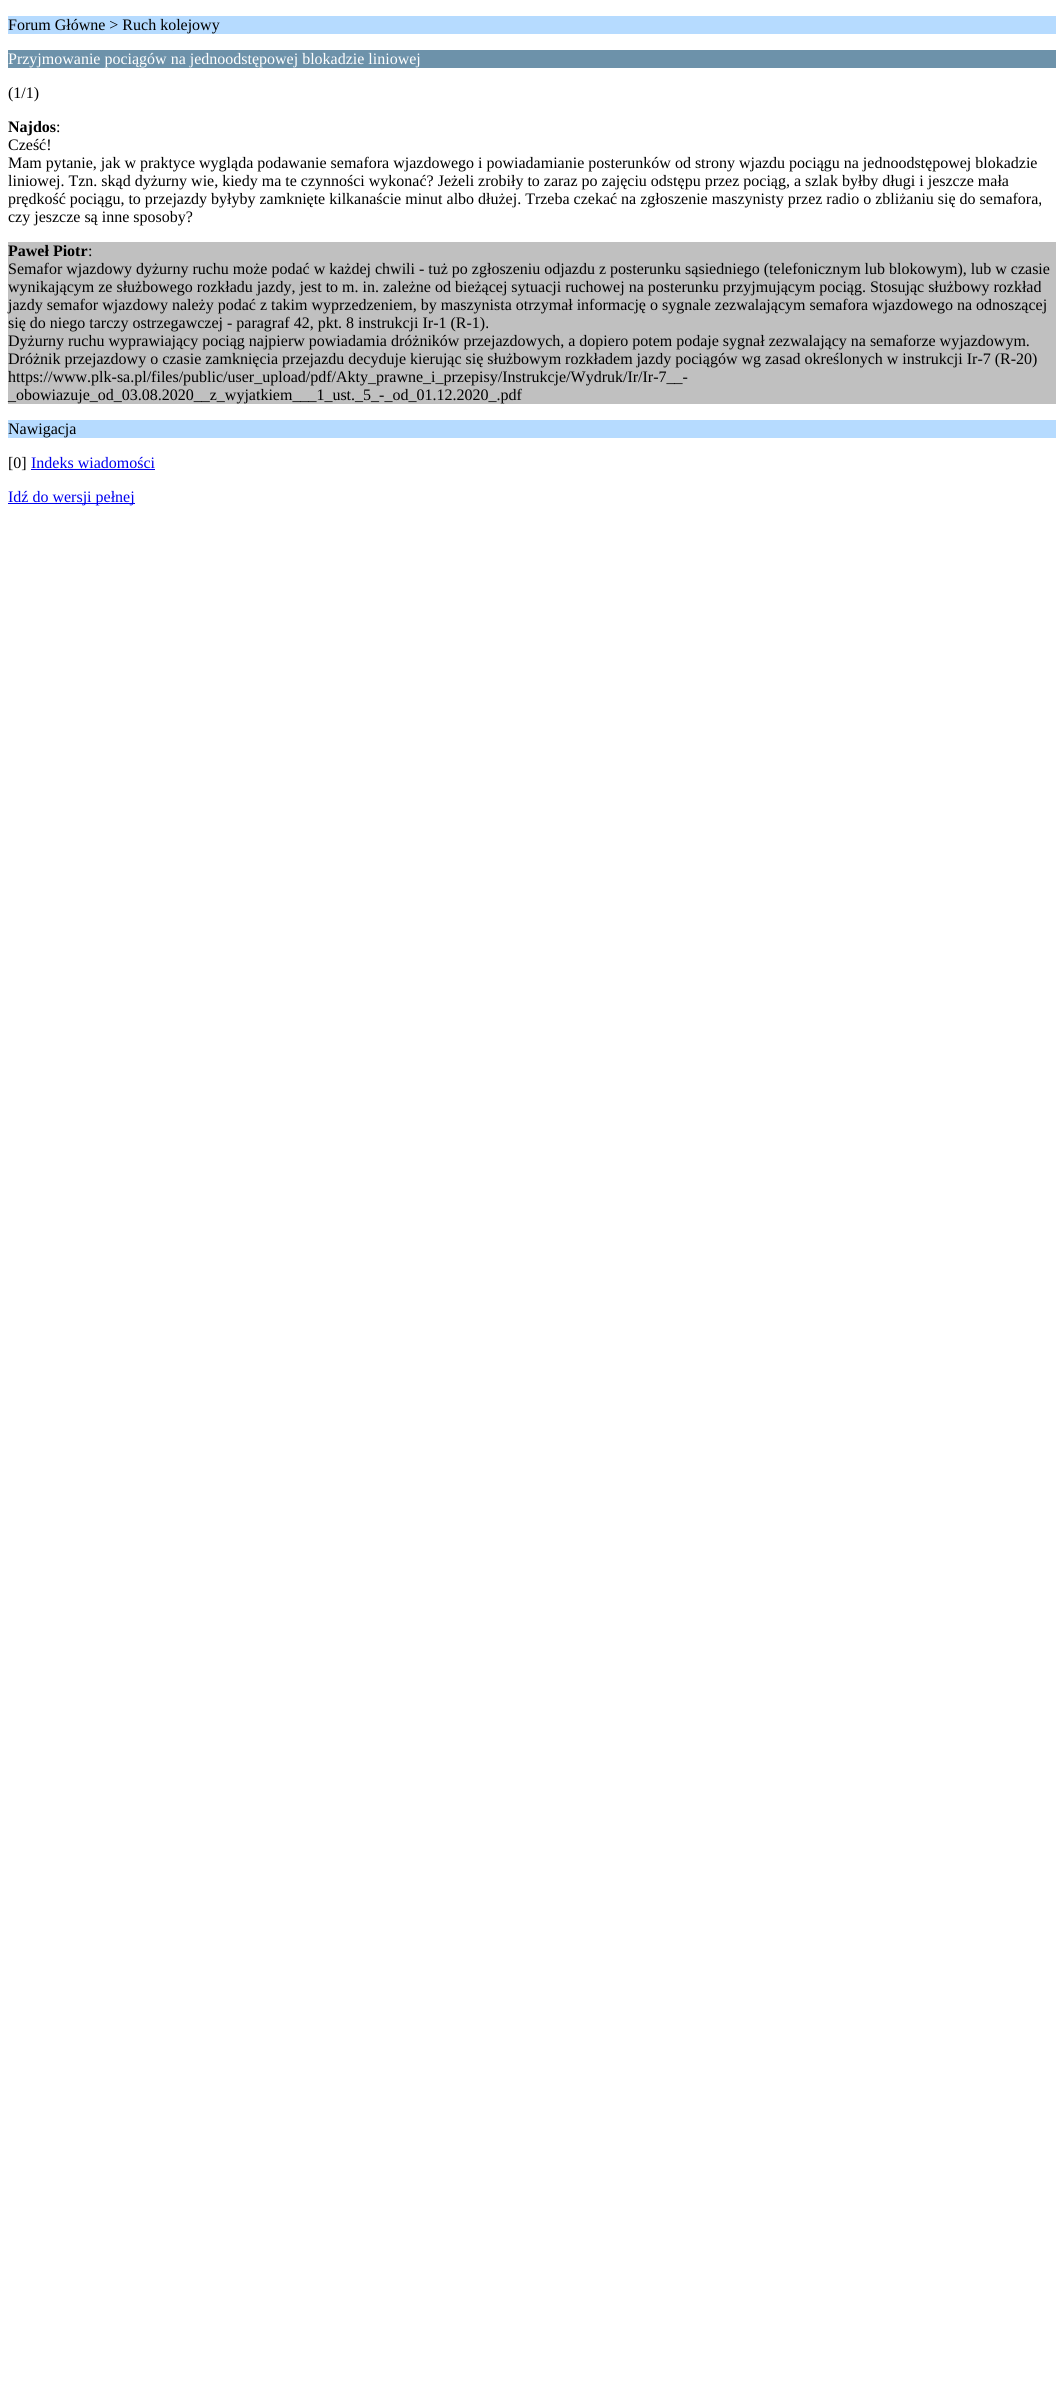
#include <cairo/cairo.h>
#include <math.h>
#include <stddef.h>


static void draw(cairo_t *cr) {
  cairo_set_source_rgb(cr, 1, 1, 1);
  cairo_paint(cr);
  cairo_set_source_rgb(cr, 182 / 255.0, 219 / 255.0, 1);
  cairo_rectangle(cr, 8, 16, 1048, 18);
  cairo_fill(cr);
  cairo_set_source_rgb(cr, 109 / 255.0, 146 / 255.0, 170 / 255.0);
  cairo_rectangle(cr, 8, 50, 1048, 18);
  cairo_fill(cr);
  cairo_set_source_rgb(cr, 192 / 255.0, 192 / 255.0, 192 / 255.0);
  cairo_rectangle(cr, 8, 242, 1048, 162);
  cairo_fill(cr);
  cairo_set_source_rgb(cr, 182 / 255.0, 219 / 255.0, 1);
  cairo_rectangle(cr, 8, 420, 1048, 18);
  cairo_fill(cr);
  cairo_set_source_rgb(cr, 0, 0, 238 / 255.0);
  cairo_rectangle(cr, 31, 469, 124, 1);
  cairo_fill(cr);
  cairo_rectangle(cr, 8, 503, 127, 1);
  cairo_fill(cr);
  cairo_select_font_face(cr, "Liberation Serif", CAIRO_FONT_SLANT_NORMAL, CAIRO_FONT_WEIGHT_NORMAL);
  cairo_set_font_size(cr, 16);
  cairo_set_source_rgb(cr, 0, 0, 0);
  cairo_move_to(cr, 8, 30);
  cairo_show_text(cr, "Forum Główne > Ruch kolejowy");
  cairo_set_source_rgb(cr, 1, 1, 1);
  cairo_move_to(cr, 8, 64);
  cairo_show_text(cr, "Przyjmowanie pociągów na jednoodstępowej blokadzie liniowej");
  cairo_set_source_rgb(cr, 0, 0, 0);
  cairo_move_to(cr, 8, 98);
  cairo_show_text(cr, "(1/1)");
  cairo_select_font_face(cr, "Liberation Serif", CAIRO_FONT_SLANT_NORMAL, CAIRO_FONT_WEIGHT_BOLD);
  cairo_move_to(cr, 8, 132);
  cairo_show_text(cr, "Najdos");
  cairo_select_font_face(cr, "Liberation Serif", CAIRO_FONT_SLANT_NORMAL, CAIRO_FONT_WEIGHT_NORMAL);
  cairo_move_to(cr, 56, 132);
  cairo_show_text(cr, ":");
  cairo_move_to(cr, 8, 150);
  cairo_show_text(cr, "Cześć!");
  cairo_move_to(cr, 8, 168);
  cairo_show_text(cr, "Mam pytanie, jak w praktyce wygląda podawanie semafora wjazdowego i powiadamianie posterunków od strony wjazdu pociągu na jednoodstępowej blokadzie");
  cairo_move_to(cr, 8, 186);
  cairo_show_text(cr, "liniowej. Tzn. skąd dyżurny wie, kiedy ma te czynności wykonać? Jeżeli zrobiły to zaraz po zajęciu odstępu przez pociąg, a szlak byłby długi i jeszcze mała");
  cairo_move_to(cr, 8, 204);
  cairo_show_text(cr, "prędkość pociągu, to przejazdy byłyby zamknięte kilkanaście minut albo dłużej. Trzeba czekać na zgłoszenie maszynisty przez radio o zbliżaniu się do semafora,");
  cairo_move_to(cr, 8, 222);
  cairo_show_text(cr, "czy jeszcze są inne sposoby?");
  cairo_select_font_face(cr, "Liberation Serif", CAIRO_FONT_SLANT_NORMAL, CAIRO_FONT_WEIGHT_BOLD);
  cairo_move_to(cr, 8, 256);
  cairo_show_text(cr, "Paweł Piotr");
  cairo_select_font_face(cr, "Liberation Serif", CAIRO_FONT_SLANT_NORMAL, CAIRO_FONT_WEIGHT_NORMAL);
  cairo_move_to(cr, 88, 256);
  cairo_show_text(cr, ":");
  cairo_move_to(cr, 8, 274);
  cairo_show_text(cr, "Semafor wjazdowy dyżurny ruchu może podać w każdej chwili - tuż po zgłoszeniu odjazdu z posterunku sąsiedniego (telefonicznym lub blokowym), lub w czasie");
  cairo_move_to(cr, 8, 292);
  cairo_show_text(cr, "wynikającym ze służbowego rozkładu jazdy, jest to m. in. zależne od bieżącej sytuacji ruchowej na posterunku przyjmującym pociąg. Stosując służbowy rozkład");
  cairo_move_to(cr, 8, 310);
  cairo_show_text(cr, "jazdy semafor wjazdowy należy podać z takim wyprzedzeniem, by maszynista otrzymał informację o sygnale zezwalającym semafora wjazdowego na odnoszącej");
  cairo_move_to(cr, 8, 328);
  cairo_show_text(cr, "się do niego tarczy ostrzegawczej - paragraf 42, pkt. 8 instrukcji Ir-1 (R-1).");
  cairo_move_to(cr, 8, 346);
  cairo_show_text(cr, "Dyżurny ruchu wyprawiający pociąg najpierw powiadamia dróżników przejazdowych, a dopiero potem podaje sygnał zezwalający na semaforze wyjazdowym.");
  cairo_move_to(cr, 8, 364);
  cairo_show_text(cr, "Dróżnik przejazdowy o czasie zamknięcia przejazdu decyduje kierując się służbowym rozkładem jazdy pociągów wg zasad określonych w instrukcji Ir-7 (R-20)");
  cairo_move_to(cr, 8, 382);
  cairo_show_text(cr, "https://www.plk-sa.pl/files/public/user_upload/pdf/Akty_prawne_i_przepisy/Instrukcje/Wydruk/Ir/Ir-7__-");
  cairo_move_to(cr, 8, 400);
  cairo_show_text(cr, "_obowiazuje_od_03.08.2020__z_wyjatkiem___1_ust._5_-_od_01.12.2020_.pdf");
  cairo_move_to(cr, 8, 434);
  cairo_show_text(cr, "Nawigacja");
  cairo_move_to(cr, 8, 468);
  cairo_show_text(cr, "[0]");
  cairo_set_source_rgb(cr, 0, 0, 238 / 255.0);
  cairo_move_to(cr, 31, 468);
  cairo_show_text(cr, "Indeks wiadomości");
  cairo_move_to(cr, 8, 502);
  cairo_show_text(cr, "Idź do wersji pełnej");
}

int main(void) {
  cairo_surface_t *surface = cairo_image_surface_create(CAIRO_FORMAT_RGB24, 1064, 2408);
  cairo_t *cr = cairo_create(surface);
  cairo_font_options_t *options = cairo_font_options_create();
  cairo_font_options_set_hint_metrics(options, CAIRO_HINT_METRICS_OFF);
  cairo_font_options_set_hint_style(options, CAIRO_HINT_STYLE_NONE);
  cairo_set_font_options(cr, options);
  cairo_set_miter_limit(cr, 4);
  draw(cr);
  cairo_surface_write_to_png(surface, "out.png");
  cairo_font_options_destroy(options);
  cairo_destroy(cr);
  cairo_surface_destroy(surface);
  return 0;
}
